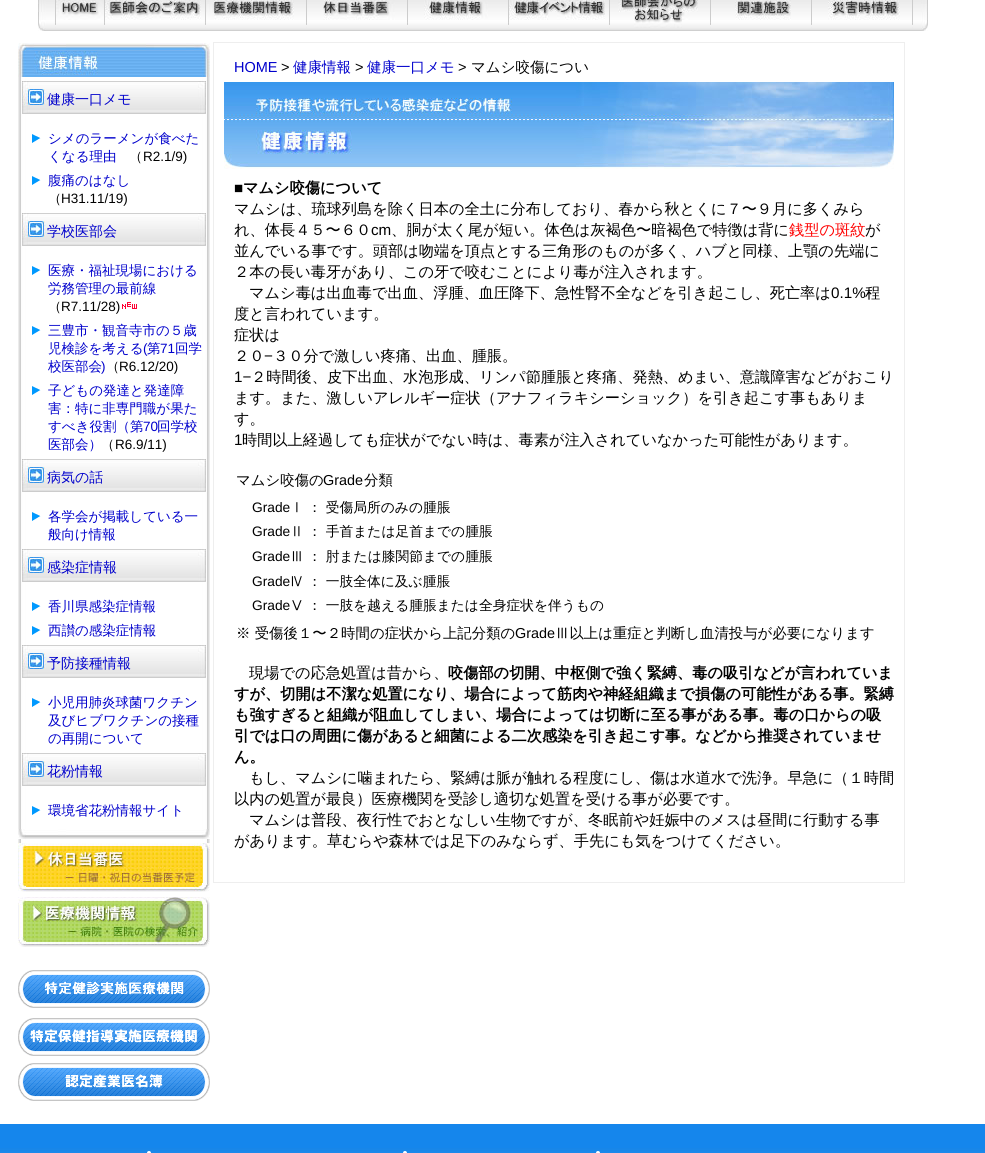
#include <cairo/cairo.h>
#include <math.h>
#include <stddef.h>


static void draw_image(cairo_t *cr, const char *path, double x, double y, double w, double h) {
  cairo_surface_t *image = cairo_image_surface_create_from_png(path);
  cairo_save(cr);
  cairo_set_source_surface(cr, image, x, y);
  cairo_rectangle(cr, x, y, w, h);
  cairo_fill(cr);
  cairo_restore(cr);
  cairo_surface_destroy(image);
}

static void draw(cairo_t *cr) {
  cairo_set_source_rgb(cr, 1, 1, 1);
  cairo_paint(cr);
  draw_image(cr, "images/1.png", 38, 0, 17, 31);
  draw_image(cr, "images/2.png", 55, 0, 1, 31);
  draw_image(cr, "images/3.png", 56, 0, 48, 31);
  draw_image(cr, "images/2.png", 104, 0, 1, 31);
  draw_image(cr, "images/4.png", 105, 0, 100, 31);
  draw_image(cr, "images/2.png", 205, 0, 1, 31);
  draw_image(cr, "images/5.png", 206, 0, 100, 31);
  draw_image(cr, "images/2.png", 306, 0, 1, 31);
  draw_image(cr, "images/6.png", 307, 0, 100, 31);
  draw_image(cr, "images/2.png", 407, 0, 1, 31);
  draw_image(cr, "images/7.png", 408, 0, 100, 31);
  draw_image(cr, "images/2.png", 508, 0, 1, 31);
  draw_image(cr, "images/8.png", 509, 0, 100, 31);
  draw_image(cr, "images/2.png", 609, 0, 1, 31);
  draw_image(cr, "images/9.png", 610, 0, 100, 31);
  draw_image(cr, "images/2.png", 710, 0, 1, 31);
  draw_image(cr, "images/10.png", 711, 0, 100, 31);
  draw_image(cr, "images/2.png", 811, 0, 1, 31);
  draw_image(cr, "images/11.png", 812, 0, 100, 31);
  draw_image(cr, "images/2.png", 912, 0, 1, 31);
  draw_image(cr, "images/12.png", 913, 0, 15, 31);
  draw_image(cr, "images/13.png", 18, 77, 192, 766);
  draw_image(cr, "images/14.png", 18, 43, 192, 34);
  draw_image(cr, "images/15.png", 22, 81, 184, 33);
  draw_image(cr, "images/16.png", 32, 134, 9, 9);
  draw_image(cr, "images/16.png", 32, 176, 9, 9);
  draw_image(cr, "images/15.png", 22, 213, 184, 33);
  draw_image(cr, "images/16.png", 32, 266, 9, 9);
  draw_image(cr, "images/17.png", 122, 302, 15, 7);
  draw_image(cr, "images/16.png", 32, 326, 9, 9);
  draw_image(cr, "images/16.png", 32, 386, 9, 9);
  draw_image(cr, "images/15.png", 22, 459, 184, 33);
  draw_image(cr, "images/16.png", 32, 512, 9, 9);
  draw_image(cr, "images/15.png", 22, 549, 184, 33);
  draw_image(cr, "images/16.png", 32, 602, 9, 9);
  draw_image(cr, "images/16.png", 32, 626, 9, 9);
  draw_image(cr, "images/15.png", 22, 645, 184, 33);
  draw_image(cr, "images/16.png", 32, 698, 9, 9);
  draw_image(cr, "images/15.png", 22, 753, 184, 33);
  draw_image(cr, "images/16.png", 32, 806, 9, 9);
  draw_image(cr, "images/18.png", 18, 829, 192, 10);
  draw_image(cr, "images/19.png", 18, 843, 192, 49);
  draw_image(cr, "images/20.png", 18, 897, 192, 50);
  draw_image(cr, "images/21.png", 18, 970, 192, 38);
  draw_image(cr, "images/22.png", 18, 1018, 192, 38);
  draw_image(cr, "images/23.png", 18, 1063, 192, 38);
  cairo_rectangle(cr, 213.5, 42.5, 691, 840);
  cairo_set_source_rgb(cr, 238 / 255.0, 238 / 255.0, 238 / 255.0);
  cairo_set_line_width(cr, 1);
  cairo_stroke(cr);
  draw_image(cr, "images/24.png", 224, 82, 670, 87);
  draw_image(cr, "images/25.png", 0, 1124, 985, 29);
  cairo_set_source_rgb(cr, 1, 1, 1);
  cairo_arc(cr, 149, 1153, 2, 0, 2 * M_PI);
  cairo_fill(cr);
  cairo_arc(cr, 405, 1153, 2, 0, 2 * M_PI);
  cairo_fill(cr);
  cairo_arc(cr, 598, 1153, 2, 0, 2 * M_PI);
  cairo_fill(cr);
  cairo_select_font_face(cr, "WenQuanYi Zen Hei Medium", CAIRO_FONT_SLANT_NORMAL, CAIRO_FONT_WEIGHT_NORMAL);
  cairo_set_font_size(cr, 14);
  cairo_set_source_rgb(cr, 0, 0, 204 / 255.0);
  cairo_move_to(cr, 47, 104);
  cairo_show_text(cr, "健康一口メモ");
  cairo_set_font_size(cr, 13.5);
  cairo_move_to(cr, 48, 143);
  cairo_show_text(cr, "シメのラーメンが食べた");
  cairo_move_to(cr, 48, 161);
  cairo_show_text(cr, "くなる理由");
  cairo_set_source_rgb(cr, 0, 0, 0);
  cairo_move_to(cr, 129, 161);
  cairo_show_text(cr, "（");
  cairo_select_font_face(cr, "Liberation Sans", CAIRO_FONT_SLANT_NORMAL, CAIRO_FONT_WEIGHT_NORMAL);
  cairo_move_to(cr, 143, 161);
  cairo_show_text(cr, "R2.1/9)");
  cairo_select_font_face(cr, "WenQuanYi Zen Hei Medium", CAIRO_FONT_SLANT_NORMAL, CAIRO_FONT_WEIGHT_NORMAL);
  cairo_set_source_rgb(cr, 0, 0, 204 / 255.0);
  cairo_move_to(cr, 48, 185);
  cairo_show_text(cr, "腹痛のはなし");
  cairo_set_source_rgb(cr, 0, 0, 0);
  cairo_move_to(cr, 48, 203);
  cairo_show_text(cr, "（");
  cairo_select_font_face(cr, "Liberation Sans", CAIRO_FONT_SLANT_NORMAL, CAIRO_FONT_WEIGHT_NORMAL);
  cairo_move_to(cr, 61, 203);
  cairo_show_text(cr, "H31.11/19)");
  cairo_select_font_face(cr, "WenQuanYi Zen Hei Medium", CAIRO_FONT_SLANT_NORMAL, CAIRO_FONT_WEIGHT_NORMAL);
  cairo_set_font_size(cr, 14);
  cairo_set_source_rgb(cr, 0, 0, 204 / 255.0);
  cairo_move_to(cr, 47, 236);
  cairo_show_text(cr, "学校医部会");
  cairo_set_font_size(cr, 13.5);
  cairo_move_to(cr, 48, 275);
  cairo_show_text(cr, "医療・福祉現場における");
  cairo_move_to(cr, 48, 293);
  cairo_show_text(cr, "労務管理の最前線");
  cairo_set_source_rgb(cr, 0, 0, 0);
  cairo_move_to(cr, 48, 311);
  cairo_show_text(cr, "（");
  cairo_select_font_face(cr, "Liberation Sans", CAIRO_FONT_SLANT_NORMAL, CAIRO_FONT_WEIGHT_NORMAL);
  cairo_move_to(cr, 61, 311);
  cairo_show_text(cr, "R7.11/28)");
  cairo_select_font_face(cr, "WenQuanYi Zen Hei Medium", CAIRO_FONT_SLANT_NORMAL, CAIRO_FONT_WEIGHT_NORMAL);
  cairo_set_source_rgb(cr, 0, 0, 204 / 255.0);
  cairo_move_to(cr, 48, 335);
  cairo_show_text(cr, "三豊市・観音寺市の５歳");
  cairo_move_to(cr, 48, 353);
  cairo_show_text(cr, "児検診を考える");
  cairo_select_font_face(cr, "Liberation Sans", CAIRO_FONT_SLANT_NORMAL, CAIRO_FONT_WEIGHT_NORMAL);
  cairo_move_to(cr, 143, 353);
  cairo_show_text(cr, "(");
  cairo_select_font_face(cr, "WenQuanYi Zen Hei Medium", CAIRO_FONT_SLANT_NORMAL, CAIRO_FONT_WEIGHT_NORMAL);
  cairo_move_to(cr, 147, 353);
  cairo_show_text(cr, "第");
  cairo_select_font_face(cr, "Liberation Sans", CAIRO_FONT_SLANT_NORMAL, CAIRO_FONT_WEIGHT_NORMAL);
  cairo_move_to(cr, 160, 353);
  cairo_show_text(cr, "71");
  cairo_select_font_face(cr, "WenQuanYi Zen Hei Medium", CAIRO_FONT_SLANT_NORMAL, CAIRO_FONT_WEIGHT_NORMAL);
  cairo_move_to(cr, 175, 353);
  cairo_show_text(cr, "回学");
  cairo_move_to(cr, 48, 371);
  cairo_show_text(cr, "校医部会");
  cairo_select_font_face(cr, "Liberation Sans", CAIRO_FONT_SLANT_NORMAL, CAIRO_FONT_WEIGHT_NORMAL);
  cairo_move_to(cr, 101, 371);
  cairo_show_text(cr, ")");
  cairo_select_font_face(cr, "WenQuanYi Zen Hei Medium", CAIRO_FONT_SLANT_NORMAL, CAIRO_FONT_WEIGHT_NORMAL);
  cairo_set_source_rgb(cr, 0, 0, 0);
  cairo_move_to(cr, 106, 371);
  cairo_show_text(cr, "（");
  cairo_select_font_face(cr, "Liberation Sans", CAIRO_FONT_SLANT_NORMAL, CAIRO_FONT_WEIGHT_NORMAL);
  cairo_move_to(cr, 119, 371);
  cairo_show_text(cr, "R6.12/20)");
  cairo_select_font_face(cr, "WenQuanYi Zen Hei Medium", CAIRO_FONT_SLANT_NORMAL, CAIRO_FONT_WEIGHT_NORMAL);
  cairo_set_source_rgb(cr, 0, 0, 204 / 255.0);
  cairo_move_to(cr, 48, 395);
  cairo_show_text(cr, "子どもの発達と発達障");
  cairo_move_to(cr, 48, 413);
  cairo_show_text(cr, "害：特に非専門職が果た");
  cairo_move_to(cr, 48, 431);
  cairo_show_text(cr, "すべき役割（第");
  cairo_select_font_face(cr, "Liberation Sans", CAIRO_FONT_SLANT_NORMAL, CAIRO_FONT_WEIGHT_NORMAL);
  cairo_move_to(cr, 143, 431);
  cairo_show_text(cr, "70");
  cairo_select_font_face(cr, "WenQuanYi Zen Hei Medium", CAIRO_FONT_SLANT_NORMAL, CAIRO_FONT_WEIGHT_NORMAL);
  cairo_move_to(cr, 157, 431);
  cairo_show_text(cr, "回学校");
  cairo_move_to(cr, 48, 449);
  cairo_show_text(cr, "医部会）");
  cairo_set_source_rgb(cr, 0, 0, 0);
  cairo_move_to(cr, 101, 449);
  cairo_show_text(cr, "（");
  cairo_select_font_face(cr, "Liberation Sans", CAIRO_FONT_SLANT_NORMAL, CAIRO_FONT_WEIGHT_NORMAL);
  cairo_move_to(cr, 115, 449);
  cairo_show_text(cr, "R6.9/11)");
  cairo_select_font_face(cr, "WenQuanYi Zen Hei Medium", CAIRO_FONT_SLANT_NORMAL, CAIRO_FONT_WEIGHT_NORMAL);
  cairo_set_font_size(cr, 14);
  cairo_set_source_rgb(cr, 0, 0, 204 / 255.0);
  cairo_move_to(cr, 47, 482);
  cairo_show_text(cr, "病気の話");
  cairo_set_font_size(cr, 13.5);
  cairo_move_to(cr, 48, 521);
  cairo_show_text(cr, "各学会が掲載している一");
  cairo_move_to(cr, 48, 539);
  cairo_show_text(cr, "般向け情報");
  cairo_set_font_size(cr, 14);
  cairo_move_to(cr, 47, 572);
  cairo_show_text(cr, "感染症情報");
  cairo_set_font_size(cr, 13.5);
  cairo_move_to(cr, 48, 611);
  cairo_show_text(cr, "香川県感染症情報");
  cairo_move_to(cr, 48, 635);
  cairo_show_text(cr, "西讃の感染症情報");
  cairo_set_font_size(cr, 14);
  cairo_move_to(cr, 47, 668);
  cairo_show_text(cr, "予防接種情報");
  cairo_set_font_size(cr, 13.5);
  cairo_move_to(cr, 48, 707);
  cairo_show_text(cr, "小児用肺炎球菌ワクチン");
  cairo_move_to(cr, 48, 725);
  cairo_show_text(cr, "及びヒブワクチンの接種");
  cairo_move_to(cr, 48, 743);
  cairo_show_text(cr, "の再開について");
  cairo_set_font_size(cr, 14);
  cairo_move_to(cr, 47, 776);
  cairo_show_text(cr, "花粉情報");
  cairo_set_font_size(cr, 13.5);
  cairo_move_to(cr, 48, 815);
  cairo_show_text(cr, "環境省花粉情報サイト");
  cairo_select_font_face(cr, "Liberation Sans", CAIRO_FONT_SLANT_NORMAL, CAIRO_FONT_WEIGHT_NORMAL);
  cairo_set_font_size(cr, 14.5);
  cairo_move_to(cr, 234, 72);
  cairo_show_text(cr, "HOME");
  cairo_set_source_rgb(cr, 0, 0, 0);
  cairo_move_to(cr, 281, 72);
  cairo_show_text(cr, ">");
  cairo_select_font_face(cr, "WenQuanYi Zen Hei Medium", CAIRO_FONT_SLANT_NORMAL, CAIRO_FONT_WEIGHT_NORMAL);
  cairo_set_source_rgb(cr, 0, 0, 204 / 255.0);
  cairo_move_to(cr, 293, 72);
  cairo_show_text(cr, "健康情報");
  cairo_select_font_face(cr, "Liberation Sans", CAIRO_FONT_SLANT_NORMAL, CAIRO_FONT_WEIGHT_NORMAL);
  cairo_set_source_rgb(cr, 0, 0, 0);
  cairo_move_to(cr, 355, 72);
  cairo_show_text(cr, ">");
  cairo_select_font_face(cr, "WenQuanYi Zen Hei Medium", CAIRO_FONT_SLANT_NORMAL, CAIRO_FONT_WEIGHT_NORMAL);
  cairo_set_source_rgb(cr, 0, 0, 204 / 255.0);
  cairo_move_to(cr, 367, 72);
  cairo_show_text(cr, "健康一口メモ");
  cairo_select_font_face(cr, "Liberation Sans", CAIRO_FONT_SLANT_NORMAL, CAIRO_FONT_WEIGHT_NORMAL);
  cairo_set_source_rgb(cr, 0, 0, 0);
  cairo_move_to(cr, 458, 72);
  cairo_show_text(cr, ">");
  cairo_select_font_face(cr, "WenQuanYi Zen Hei Medium", CAIRO_FONT_SLANT_NORMAL, CAIRO_FONT_WEIGHT_NORMAL);
  cairo_move_to(cr, 471, 72);
  cairo_show_text(cr, "マムシ咬傷につい");
  cairo_select_font_face(cr, "Liberation Sans", CAIRO_FONT_SLANT_NORMAL, CAIRO_FONT_WEIGHT_BOLD);
  cairo_set_font_size(cr, 15.2);
  cairo_move_to(cr, 234, 193);
  cairo_show_text(cr, "■");
  cairo_select_font_face(cr, "WenQuanYi Zen Hei", CAIRO_FONT_SLANT_NORMAL, CAIRO_FONT_WEIGHT_BOLD);
  cairo_move_to(cr, 243, 193);
  cairo_show_text(cr, "マムシ咬傷について");
  cairo_select_font_face(cr, "WenQuanYi Zen Hei Medium", CAIRO_FONT_SLANT_NORMAL, CAIRO_FONT_WEIGHT_NORMAL);
  cairo_move_to(cr, 234, 214);
  cairo_show_text(cr, "マムシは、琉球列島を除く日本の全土に分布しており、春から秋とくに７〜９月に多くみら");
  cairo_move_to(cr, 234, 235);
  cairo_show_text(cr, "れ、体長４５〜６０");
  cairo_select_font_face(cr, "Liberation Sans", CAIRO_FONT_SLANT_NORMAL, CAIRO_FONT_WEIGHT_NORMAL);
  cairo_move_to(cr, 371, 235);
  cairo_show_text(cr, "cm");
  cairo_select_font_face(cr, "WenQuanYi Zen Hei Medium", CAIRO_FONT_SLANT_NORMAL, CAIRO_FONT_WEIGHT_NORMAL);
  cairo_move_to(cr, 391, 235);
  cairo_show_text(cr, "、胴が太く尾が短い。体色は灰褐色〜暗褐色で特徴は背に");
  cairo_set_source_rgb(cr, 1, 0, 0);
  cairo_move_to(cr, 789, 235);
  cairo_show_text(cr, "銭型の斑紋");
  cairo_set_source_rgb(cr, 0, 0, 0);
  cairo_move_to(cr, 865, 235);
  cairo_show_text(cr, "が");
  cairo_move_to(cr, 234, 256);
  cairo_show_text(cr, "並んでいる事です。頭部は吻端を頂点とする三角形のものが多く、ハブと同様、上顎の先端に");
  cairo_move_to(cr, 234, 277);
  cairo_show_text(cr, "２本の長い毒牙があり、この牙で咬むことにより毒が注入されます。");
  cairo_move_to(cr, 249, 298);
  cairo_show_text(cr, "マムシ毒は出血毒で出血、浮腫、血圧降下、急性腎不全などを引き起こし、死亡率は");
  cairo_select_font_face(cr, "Liberation Sans", CAIRO_FONT_SLANT_NORMAL, CAIRO_FONT_WEIGHT_NORMAL);
  cairo_move_to(cr, 831, 298);
  cairo_show_text(cr, "0.1%");
  cairo_select_font_face(cr, "WenQuanYi Zen Hei Medium", CAIRO_FONT_SLANT_NORMAL, CAIRO_FONT_WEIGHT_NORMAL);
  cairo_move_to(cr, 865, 298);
  cairo_show_text(cr, "程");
  cairo_move_to(cr, 234, 319);
  cairo_show_text(cr, "度と言われています。");
  cairo_move_to(cr, 234, 340);
  cairo_show_text(cr, "症状は");
  cairo_move_to(cr, 234, 361);
  cairo_show_text(cr, "２０");
  cairo_select_font_face(cr, "Liberation Sans", CAIRO_FONT_SLANT_NORMAL, CAIRO_FONT_WEIGHT_NORMAL);
  cairo_move_to(cr, 264, 361);
  cairo_show_text(cr, "−");
  cairo_select_font_face(cr, "WenQuanYi Zen Hei Medium", CAIRO_FONT_SLANT_NORMAL, CAIRO_FONT_WEIGHT_NORMAL);
  cairo_move_to(cr, 273, 361);
  cairo_show_text(cr, "３０分で激しい疼痛、出血、腫脹。");
  cairo_select_font_face(cr, "Liberation Sans", CAIRO_FONT_SLANT_NORMAL, CAIRO_FONT_WEIGHT_NORMAL);
  cairo_move_to(cr, 234, 382);
  cairo_show_text(cr, "1−");
  cairo_select_font_face(cr, "WenQuanYi Zen Hei Medium", CAIRO_FONT_SLANT_NORMAL, CAIRO_FONT_WEIGHT_NORMAL);
  cairo_move_to(cr, 251, 382);
  cairo_show_text(cr, "２時間後、皮下出血、水泡形成、リンパ節腫脹と疼痛、発熱、めまい、意識障害などがおこり");
  cairo_move_to(cr, 234, 403);
  cairo_show_text(cr, "ます。また、激しいアレルギー症状（アナフィラキシーショック）を引き起こす事もありま");
  cairo_move_to(cr, 234, 424);
  cairo_show_text(cr, "す。");
  cairo_select_font_face(cr, "Liberation Sans", CAIRO_FONT_SLANT_NORMAL, CAIRO_FONT_WEIGHT_NORMAL);
  cairo_move_to(cr, 234, 445);
  cairo_show_text(cr, "1");
  cairo_select_font_face(cr, "WenQuanYi Zen Hei Medium", CAIRO_FONT_SLANT_NORMAL, CAIRO_FONT_WEIGHT_NORMAL);
  cairo_move_to(cr, 242, 445);
  cairo_show_text(cr, "時間以上経過しても症状がでない時は、毒素が注入されていなかった可能性があります。");
  cairo_set_font_size(cr, 14.4);
  cairo_move_to(cr, 236, 485);
  cairo_show_text(cr, "マムシ咬傷の");
  cairo_select_font_face(cr, "Liberation Sans", CAIRO_FONT_SLANT_NORMAL, CAIRO_FONT_WEIGHT_NORMAL);
  cairo_move_to(cr, 323, 485);
  cairo_show_text(cr, "Grade");
  cairo_select_font_face(cr, "WenQuanYi Zen Hei Medium", CAIRO_FONT_SLANT_NORMAL, CAIRO_FONT_WEIGHT_NORMAL);
  cairo_move_to(cr, 364, 485);
  cairo_show_text(cr, "分類");
  cairo_select_font_face(cr, "Liberation Sans", CAIRO_FONT_SLANT_NORMAL, CAIRO_FONT_WEIGHT_NORMAL);
  cairo_set_font_size(cr, 13.75);
  cairo_move_to(cr, 252, 512);
  cairo_show_text(cr, "Grade");
  cairo_select_font_face(cr, "WenQuanYi Zen Hei Medium", CAIRO_FONT_SLANT_NORMAL, CAIRO_FONT_WEIGHT_NORMAL);
  cairo_move_to(cr, 290, 512);
  cairo_show_text(cr, "Ⅰ ： 受傷局所のみの腫脹");
  cairo_select_font_face(cr, "Liberation Sans", CAIRO_FONT_SLANT_NORMAL, CAIRO_FONT_WEIGHT_NORMAL);
  cairo_move_to(cr, 252, 536);
  cairo_show_text(cr, "Grade");
  cairo_select_font_face(cr, "WenQuanYi Zen Hei Medium", CAIRO_FONT_SLANT_NORMAL, CAIRO_FONT_WEIGHT_NORMAL);
  cairo_move_to(cr, 290, 536);
  cairo_show_text(cr, "Ⅱ ： 手首または足首までの腫脹");
  cairo_select_font_face(cr, "Liberation Sans", CAIRO_FONT_SLANT_NORMAL, CAIRO_FONT_WEIGHT_NORMAL);
  cairo_move_to(cr, 252, 561);
  cairo_show_text(cr, "Grade");
  cairo_select_font_face(cr, "WenQuanYi Zen Hei Medium", CAIRO_FONT_SLANT_NORMAL, CAIRO_FONT_WEIGHT_NORMAL);
  cairo_move_to(cr, 290, 561);
  cairo_show_text(cr, "Ⅲ ： 肘または膝関節までの腫脹");
  cairo_select_font_face(cr, "Liberation Sans", CAIRO_FONT_SLANT_NORMAL, CAIRO_FONT_WEIGHT_NORMAL);
  cairo_move_to(cr, 252, 586);
  cairo_show_text(cr, "Grade");
  cairo_select_font_face(cr, "WenQuanYi Zen Hei Medium", CAIRO_FONT_SLANT_NORMAL, CAIRO_FONT_WEIGHT_NORMAL);
  cairo_move_to(cr, 290, 586);
  cairo_show_text(cr, "Ⅳ ： 一肢全体に及ぶ腫脹");
  cairo_select_font_face(cr, "Liberation Sans", CAIRO_FONT_SLANT_NORMAL, CAIRO_FONT_WEIGHT_NORMAL);
  cairo_move_to(cr, 252, 610);
  cairo_show_text(cr, "Grade");
  cairo_select_font_face(cr, "WenQuanYi Zen Hei Medium", CAIRO_FONT_SLANT_NORMAL, CAIRO_FONT_WEIGHT_NORMAL);
  cairo_move_to(cr, 290, 610);
  cairo_show_text(cr, "Ⅴ ： 一肢を越える腫脹または全身症状を伴うもの");
  cairo_set_font_size(cr, 14.4);
  cairo_move_to(cr, 236, 638);
  cairo_show_text(cr, "※ 受傷後１〜２時間の症状から上記分類の");
  cairo_select_font_face(cr, "Liberation Sans", CAIRO_FONT_SLANT_NORMAL, CAIRO_FONT_WEIGHT_NORMAL);
  cairo_move_to(cr, 515, 638);
  cairo_show_text(cr, "Grade");
  cairo_select_font_face(cr, "WenQuanYi Zen Hei Medium", CAIRO_FONT_SLANT_NORMAL, CAIRO_FONT_WEIGHT_NORMAL);
  cairo_move_to(cr, 555, 638);
  cairo_show_text(cr, "Ⅲ以上は重症と判断し血清投与が必要になります");
  cairo_set_font_size(cr, 15.2);
  cairo_move_to(cr, 249, 678);
  cairo_show_text(cr, "現場での応急処置は昔から、");
  cairo_select_font_face(cr, "WenQuanYi Zen Hei", CAIRO_FONT_SLANT_NORMAL, CAIRO_FONT_WEIGHT_BOLD);
  cairo_move_to(cr, 448, 678);
  cairo_show_text(cr, "咬傷部の切開、中枢側で強く緊縛、毒の吸引などが言われていま");
  cairo_move_to(cr, 234, 699);
  cairo_show_text(cr, "すが、切開は不潔な処置になり、場合によって筋肉や神経組織まで損傷の可能性がある事。緊縛");
  cairo_move_to(cr, 234, 720);
  cairo_show_text(cr, "も強すぎると組織が阻血してしまい、場合によっては切断に至る事がある事。毒の口からの吸");
  cairo_move_to(cr, 234, 741);
  cairo_show_text(cr, "引では口の周囲に傷があると細菌による二次感染を引き起こす事。などから推奨されていませ");
  cairo_move_to(cr, 234, 762);
  cairo_show_text(cr, "ん。");
  cairo_select_font_face(cr, "WenQuanYi Zen Hei Medium", CAIRO_FONT_SLANT_NORMAL, CAIRO_FONT_WEIGHT_NORMAL);
  cairo_move_to(cr, 249, 783);
  cairo_show_text(cr, "もし、マムシに噛まれたら、緊縛は脈が触れる程度にし、傷は水道水で洗浄。早急に（１時間");
  cairo_move_to(cr, 234, 804);
  cairo_show_text(cr, "以内の処置が最良）医療機関を受診し適切な処置を受ける事が必要です。");
  cairo_move_to(cr, 249, 825);
  cairo_show_text(cr, "マムシは普段、夜行性でおとなしい生物ですが、冬眠前や妊娠中のメスは昼間に行動する事");
  cairo_move_to(cr, 234, 846);
  cairo_show_text(cr, "があります。草むらや森林では足下のみならず、手先にも気をつけてください。");
}

int main(void) {
  cairo_surface_t *surface = cairo_image_surface_create(CAIRO_FORMAT_RGB24, 985, 1153);
  cairo_t *cr = cairo_create(surface);
  cairo_font_options_t *options = cairo_font_options_create();
  cairo_font_options_set_hint_metrics(options, CAIRO_HINT_METRICS_OFF);
  cairo_font_options_set_hint_style(options, CAIRO_HINT_STYLE_NONE);
  cairo_set_font_options(cr, options);
  cairo_set_miter_limit(cr, 4);
  draw(cr);
  cairo_surface_write_to_png(surface, "out.png");
  cairo_font_options_destroy(options);
  cairo_destroy(cr);
  cairo_surface_destroy(surface);
  return 0;
}
